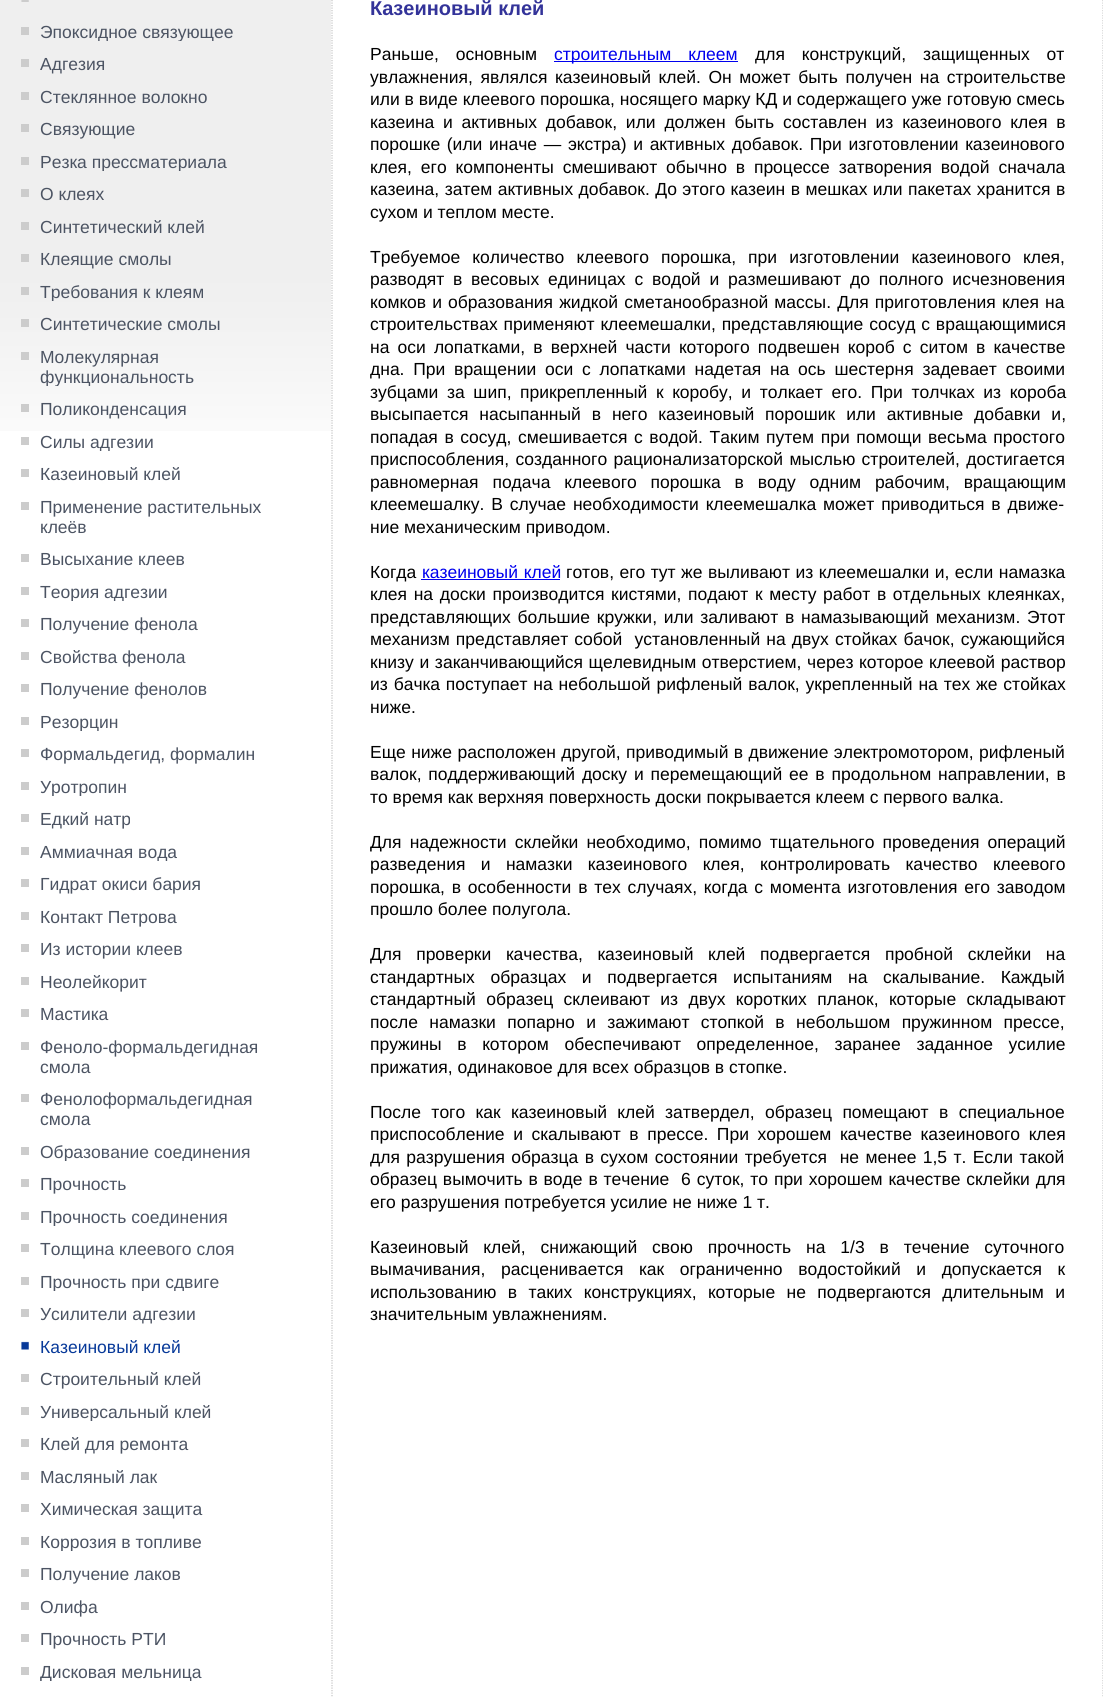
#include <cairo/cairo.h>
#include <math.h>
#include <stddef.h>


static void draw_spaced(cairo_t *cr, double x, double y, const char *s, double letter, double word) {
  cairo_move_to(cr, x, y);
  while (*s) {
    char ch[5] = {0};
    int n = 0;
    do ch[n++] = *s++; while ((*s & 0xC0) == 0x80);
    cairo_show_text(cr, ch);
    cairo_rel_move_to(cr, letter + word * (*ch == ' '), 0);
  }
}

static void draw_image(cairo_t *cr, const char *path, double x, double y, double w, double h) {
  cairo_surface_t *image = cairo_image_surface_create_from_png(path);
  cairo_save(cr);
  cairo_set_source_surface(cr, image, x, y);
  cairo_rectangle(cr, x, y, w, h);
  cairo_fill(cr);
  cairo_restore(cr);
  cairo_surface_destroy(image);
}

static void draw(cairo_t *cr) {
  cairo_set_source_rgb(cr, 1, 1, 1);
  cairo_paint(cr);
  draw_image(cr, "images/1.png", 0, 0, 331, 431);
  draw_image(cr, "images/2.png", 21, 0, 8, 2);
  cairo_set_source_rgb(cr, 204 / 255.0, 204 / 255.0, 204 / 255.0);
  cairo_rectangle(cr, 21, 27, 8, 8);
  cairo_fill(cr);
  cairo_rectangle(cr, 21, 59, 8, 8);
  cairo_fill(cr);
  cairo_rectangle(cr, 21, 92, 8, 8);
  cairo_fill(cr);
  cairo_rectangle(cr, 21, 124, 8, 8);
  cairo_fill(cr);
  cairo_rectangle(cr, 21, 157, 8, 8);
  cairo_fill(cr);
  cairo_rectangle(cr, 21, 189, 8, 8);
  cairo_fill(cr);
  cairo_rectangle(cr, 21, 222, 8, 8);
  cairo_fill(cr);
  cairo_rectangle(cr, 21, 254, 8, 8);
  cairo_fill(cr);
  cairo_rectangle(cr, 21, 287, 8, 8);
  cairo_fill(cr);
  cairo_rectangle(cr, 21, 319, 8, 8);
  cairo_fill(cr);
  cairo_rectangle(cr, 21, 352, 8, 8);
  cairo_fill(cr);
  cairo_rectangle(cr, 21, 404, 8, 8);
  cairo_fill(cr);
  cairo_rectangle(cr, 21, 437, 8, 8);
  cairo_fill(cr);
  cairo_rectangle(cr, 21, 469, 8, 8);
  cairo_fill(cr);
  cairo_rectangle(cr, 21, 502, 8, 8);
  cairo_fill(cr);
  cairo_rectangle(cr, 21, 554, 8, 8);
  cairo_fill(cr);
  cairo_rectangle(cr, 21, 587, 8, 8);
  cairo_fill(cr);
  cairo_rectangle(cr, 21, 619, 8, 8);
  cairo_fill(cr);
  cairo_rectangle(cr, 21, 652, 8, 8);
  cairo_fill(cr);
  cairo_rectangle(cr, 21, 684, 8, 8);
  cairo_fill(cr);
  cairo_rectangle(cr, 21, 717, 8, 8);
  cairo_fill(cr);
  cairo_rectangle(cr, 21, 749, 8, 8);
  cairo_fill(cr);
  cairo_rectangle(cr, 21, 782, 8, 8);
  cairo_fill(cr);
  cairo_rectangle(cr, 21, 814, 8, 8);
  cairo_fill(cr);
  cairo_rectangle(cr, 21, 847, 8, 8);
  cairo_fill(cr);
  cairo_rectangle(cr, 21, 879, 8, 8);
  cairo_fill(cr);
  cairo_rectangle(cr, 21, 912, 8, 8);
  cairo_fill(cr);
  cairo_rectangle(cr, 21, 944, 8, 8);
  cairo_fill(cr);
  cairo_rectangle(cr, 21, 977, 8, 8);
  cairo_fill(cr);
  cairo_rectangle(cr, 21, 1009, 8, 8);
  cairo_fill(cr);
  cairo_rectangle(cr, 21, 1042, 8, 8);
  cairo_fill(cr);
  cairo_rectangle(cr, 21, 1094, 8, 8);
  cairo_fill(cr);
  cairo_rectangle(cr, 21, 1147, 8, 8);
  cairo_fill(cr);
  cairo_rectangle(cr, 21, 1179, 8, 8);
  cairo_fill(cr);
  cairo_rectangle(cr, 21, 1212, 8, 8);
  cairo_fill(cr);
  cairo_rectangle(cr, 21, 1244, 8, 8);
  cairo_fill(cr);
  cairo_rectangle(cr, 21, 1277, 8, 8);
  cairo_fill(cr);
  cairo_rectangle(cr, 21, 1309, 8, 8);
  cairo_fill(cr);
  draw_image(cr, "images/3.png", 21, 1341, 8, 9);
  cairo_rectangle(cr, 21, 1374, 8, 8);
  cairo_fill(cr);
  cairo_rectangle(cr, 21, 1407, 8, 8);
  cairo_fill(cr);
  cairo_rectangle(cr, 21, 1439, 8, 8);
  cairo_fill(cr);
  cairo_rectangle(cr, 21, 1472, 8, 8);
  cairo_fill(cr);
  cairo_rectangle(cr, 21, 1504, 8, 8);
  cairo_fill(cr);
  cairo_rectangle(cr, 21, 1537, 8, 8);
  cairo_fill(cr);
  cairo_rectangle(cr, 21, 1569, 8, 8);
  cairo_fill(cr);
  cairo_rectangle(cr, 21, 1602, 8, 8);
  cairo_fill(cr);
  cairo_rectangle(cr, 21, 1634, 8, 8);
  cairo_fill(cr);
  cairo_rectangle(cr, 21, 1667, 8, 8);
  cairo_fill(cr);
  cairo_new_path(cr);
  cairo_move_to(cr, 1103, -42.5);
  cairo_line_to(cr, 1103, 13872.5);
  cairo_set_source_rgb(cr, 197 / 255.0, 197 / 255.0, 197 / 255.0);
  cairo_set_line_width(cr, 1.2);
  cairo_set_dash(cr, (double[]){1.25, 1.25}, 2, 0);
  cairo_stroke(cr);
  cairo_new_path(cr);
  cairo_move_to(cr, 332, -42.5);
  cairo_line_to(cr, 332, 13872.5);
  cairo_stroke(cr);
  cairo_set_source_rgb(cr, 0, 0, 238 / 255.0);
  cairo_rectangle(cr, 554, 61, 184, 1);
  cairo_fill(cr);
  cairo_rectangle(cr, 421, 579, 139, 1);
  cairo_fill(cr);
  cairo_save(cr);
  cairo_rectangle(cr, 21, 9, 282, 32);
  cairo_clip(cr);
  cairo_select_font_face(cr, "Liberation Sans", CAIRO_FONT_SLANT_NORMAL, CAIRO_FONT_WEIGHT_NORMAL);
  cairo_set_font_size(cr, 17.5);
  cairo_set_source_rgb(cr, 76 / 255.0, 84 / 255.0, 99 / 255.0);
  cairo_move_to(cr, 40, 38);
  cairo_show_text(cr, "Эпоксидное связующее");
  cairo_restore(cr);
  cairo_select_font_face(cr, "Liberation Sans", CAIRO_FONT_SLANT_NORMAL, CAIRO_FONT_WEIGHT_NORMAL);
  cairo_set_font_size(cr, 17.5);
  cairo_set_source_rgb(cr, 76 / 255.0, 84 / 255.0, 99 / 255.0);
  cairo_move_to(cr, 40, 70);
  cairo_show_text(cr, "Адгезия");
  cairo_move_to(cr, 40, 103);
  cairo_show_text(cr, "Стеклянное волокно");
  cairo_move_to(cr, 40, 135);
  cairo_show_text(cr, "Связующие");
  cairo_save(cr);
  cairo_rectangle(cr, 21, 139, 282, 32);
  cairo_clip(cr);
  cairo_move_to(cr, 40, 168);
  cairo_show_text(cr, "Резка прессматериала");
  cairo_restore(cr);
  cairo_move_to(cr, 40, 200);
  cairo_show_text(cr, "О клеях");
  cairo_move_to(cr, 40, 233);
  cairo_show_text(cr, "Синтетический клей");
  cairo_move_to(cr, 40, 265);
  cairo_show_text(cr, "Клеящие смолы");
  cairo_save(cr);
  cairo_rectangle(cr, 21, 269, 282, 32);
  cairo_clip(cr);
  cairo_move_to(cr, 40, 298);
  cairo_show_text(cr, "Требования к клеям");
  cairo_restore(cr);
  cairo_move_to(cr, 40, 330);
  cairo_show_text(cr, "Синтетические смолы");
  cairo_move_to(cr, 40, 363);
  cairo_show_text(cr, "Молекулярная");
  cairo_save(cr);
  cairo_rectangle(cr, 21, 334, 282, 52);
  cairo_clip(cr);
  cairo_move_to(cr, 40, 383);
  cairo_show_text(cr, "функциональность");
  cairo_restore(cr);
  cairo_move_to(cr, 40, 415);
  cairo_show_text(cr, "Поликонденсация");
  cairo_save(cr);
  cairo_rectangle(cr, 21, 419, 282, 32);
  cairo_clip(cr);
  cairo_move_to(cr, 40, 448);
  cairo_show_text(cr, "Силы адгезии");
  cairo_restore(cr);
  cairo_move_to(cr, 40, 480);
  cairo_show_text(cr, "Казеиновый клей");
  cairo_move_to(cr, 40, 513);
  cairo_show_text(cr, "Применение растительных");
  cairo_move_to(cr, 40, 533);
  cairo_show_text(cr, "клеёв");
  cairo_move_to(cr, 40, 565);
  cairo_show_text(cr, "Высыхание клеев");
  cairo_save(cr);
  cairo_rectangle(cr, 21, 569, 282, 32);
  cairo_clip(cr);
  cairo_move_to(cr, 40, 598);
  cairo_show_text(cr, "Теория адгезии");
  cairo_restore(cr);
  cairo_move_to(cr, 40, 630);
  cairo_show_text(cr, "Получение фенола");
  cairo_move_to(cr, 40, 663);
  cairo_show_text(cr, "Свойства фенола");
  cairo_move_to(cr, 40, 695);
  cairo_show_text(cr, "Получение фенолов");
  cairo_save(cr);
  cairo_rectangle(cr, 21, 699, 282, 32);
  cairo_clip(cr);
  cairo_move_to(cr, 40, 728);
  cairo_show_text(cr, "Резорцин");
  cairo_restore(cr);
  cairo_move_to(cr, 40, 760);
  cairo_show_text(cr, "Формальдегид, формалин");
  cairo_save(cr);
  cairo_rectangle(cr, 21, 764, 282, 32);
  cairo_clip(cr);
  cairo_move_to(cr, 40, 793);
  cairo_show_text(cr, "Уротропин");
  cairo_restore(cr);
  cairo_move_to(cr, 40, 825);
  cairo_show_text(cr, "Едкий натр");
  cairo_save(cr);
  cairo_rectangle(cr, 21, 829, 282, 32);
  cairo_clip(cr);
  cairo_move_to(cr, 40, 858);
  cairo_show_text(cr, "Аммиачная вода");
  cairo_restore(cr);
  cairo_move_to(cr, 40, 890);
  cairo_show_text(cr, "Гидрат окиси бария");
  cairo_move_to(cr, 40, 923);
  cairo_show_text(cr, "Контакт Петрова");
  cairo_move_to(cr, 40, 955);
  cairo_show_text(cr, "Из истории клеев");
  cairo_move_to(cr, 40, 988);
  cairo_show_text(cr, "Неолейкорит");
  cairo_move_to(cr, 40, 1020);
  cairo_show_text(cr, "Мастика");
  cairo_move_to(cr, 40, 1053);
  cairo_show_text(cr, "Феноло-формальдегидная");
  cairo_move_to(cr, 40, 1073);
  cairo_show_text(cr, "смола");
  cairo_move_to(cr, 40, 1105);
  cairo_show_text(cr, "Фенолоформальдегидная");
  cairo_move_to(cr, 40, 1125);
  cairo_show_text(cr, "смола");
  cairo_save(cr);
  cairo_rectangle(cr, 21, 1129, 282, 32);
  cairo_clip(cr);
  cairo_move_to(cr, 40, 1158);
  cairo_show_text(cr, "Образование соединения");
  cairo_restore(cr);
  cairo_move_to(cr, 40, 1190);
  cairo_show_text(cr, "Прочность");
  cairo_save(cr);
  cairo_rectangle(cr, 21, 1194, 282, 32);
  cairo_clip(cr);
  cairo_move_to(cr, 40, 1223);
  cairo_show_text(cr, "Прочность соединения");
  cairo_restore(cr);
  cairo_move_to(cr, 40, 1255);
  cairo_show_text(cr, "Толщина клеевого слоя");
  cairo_save(cr);
  cairo_rectangle(cr, 21, 1259, 282, 32);
  cairo_clip(cr);
  cairo_move_to(cr, 40, 1288);
  cairo_show_text(cr, "Прочность при сдвиге");
  cairo_restore(cr);
  cairo_move_to(cr, 40, 1320);
  cairo_show_text(cr, "Усилители адгезии");
  cairo_set_source_rgb(cr, 7 / 255.0, 57 / 255.0, 153 / 255.0);
  cairo_move_to(cr, 40, 1353);
  cairo_show_text(cr, "Казеиновый клей");
  cairo_set_source_rgb(cr, 76 / 255.0, 84 / 255.0, 99 / 255.0);
  cairo_move_to(cr, 40, 1385);
  cairo_show_text(cr, "Строительный клей");
  cairo_save(cr);
  cairo_rectangle(cr, 21, 1389, 282, 32);
  cairo_clip(cr);
  cairo_move_to(cr, 40, 1418);
  cairo_show_text(cr, "Универсальный клей");
  cairo_restore(cr);
  cairo_move_to(cr, 40, 1450);
  cairo_show_text(cr, "Клей для ремонта");
  cairo_move_to(cr, 40, 1483);
  cairo_show_text(cr, "Масляный лак");
  cairo_move_to(cr, 40, 1515);
  cairo_show_text(cr, "Химическая защита");
  cairo_save(cr);
  cairo_rectangle(cr, 21, 1519, 282, 32);
  cairo_clip(cr);
  cairo_move_to(cr, 40, 1548);
  cairo_show_text(cr, "Коррозия в топливе");
  cairo_restore(cr);
  cairo_move_to(cr, 40, 1580);
  cairo_show_text(cr, "Получение лаков");
  cairo_move_to(cr, 40, 1613);
  cairo_show_text(cr, "Олифа");
  cairo_move_to(cr, 40, 1645);
  cairo_show_text(cr, "Прочность РТИ");
  cairo_save(cr);
  cairo_rectangle(cr, 21, 1649, 282, 32);
  cairo_clip(cr);
  cairo_move_to(cr, 40, 1678);
  cairo_show_text(cr, "Дисковая мельница");
  cairo_restore(cr);
  cairo_select_font_face(cr, "Liberation Sans", CAIRO_FONT_SLANT_NORMAL, CAIRO_FONT_WEIGHT_BOLD);
  cairo_set_font_size(cr, 20);
  cairo_set_source_rgb(cr, 51 / 255.0, 51 / 255.0, 153 / 255.0);
  cairo_move_to(cr, 370, 15);
  cairo_show_text(cr, "Казеиновый клей");
  cairo_select_font_face(cr, "Liberation Sans", CAIRO_FONT_SLANT_NORMAL, CAIRO_FONT_WEIGHT_NORMAL);
  cairo_set_font_size(cr, 17.5);
  cairo_set_source_rgb(cr, 0, 0, 0);
  draw_spaced(cr, 370, 60, "Раньше, основным", 0, 12);
  cairo_set_source_rgb(cr, 0, 0, 238 / 255.0);
  draw_spaced(cr, 554, 60, "строительным клеем", 0, 12);
  cairo_set_source_rgb(cr, 0, 0, 0);
  draw_spaced(cr, 755, 60, "для конструкций, защищенных от", 0, 12);
  draw_spaced(cr, 370, 83, "увлажнения, являлся казеиновый клей. Он может быть получен на строительстве", 0, 2.75);
  cairo_move_to(cr, 370, 105);
  cairo_show_text(cr, "или в виде клеевого порошка, носящего марку КД и содержащего уже готовую смесь");
  draw_spaced(cr, 370, 128, "казеина и активных добавок, или должен быть составлен из казеинового клея в", 0, 3.9);
  draw_spaced(cr, 370, 150, "порошке (или иначе — экстра) и активных добавок. При изготовлении казеинового", 0, 1.8);
  draw_spaced(cr, 370, 173, "клея, его компоненты смешивают обычно в процессе затворения водой сначала", 0, 4);
  draw_spaced(cr, 370, 195, "казеина, затем активных добавок. До этого казеин в мешках или пакетах хранится в", 0, 0.6);
  cairo_move_to(cr, 370, 218);
  cairo_show_text(cr, "сухом и теплом месте.");
  draw_spaced(cr, 370, 263, "Требуемое количество клеевого порошка, при изготовлении казеинового клея,", 0, 7.25);
  draw_spaced(cr, 370, 285, "разводят в весовых единицах с водой и размешивают до полного исчезновения", 0, 3.9);
  draw_spaced(cr, 370, 308, "комков и образования жидкой сметанообразной массы. Для приготовления клея на", 0, 1.25);
  draw_spaced(cr, 370, 330, "строительствах применяют клеемешалки, представляющие сосуд с вращающимися", 0, 1);
  draw_spaced(cr, 370, 353, "на оси лопатками, в верхней части которого подвешен короб с ситом в качестве", 0, 3.25);
  draw_spaced(cr, 370, 375, "дна. При вращении оси с лопатками надетая на ось шестерня задевает своими", 0, 3.9);
  draw_spaced(cr, 370, 398, "зубцами за шип, прикрепленный к коробу, и толкает его. При толчках из короба", 0, 3.75);
  draw_spaced(cr, 370, 420, "высыпается насыпанный в него казеиновый порошик или активные добавки и,", 0, 6);
  draw_spaced(cr, 370, 443, "попадая в сосуд, смешивается с водой. Таким путем при помощи весьма простого", 0, 1.75);
  draw_spaced(cr, 370, 465, "приспособления, созданного рационализаторской мыслью строителей, достигается", 0, 1.5);
  draw_spaced(cr, 370, 488, "равномерная подача клеевого порошка в воду одним рабочим, вращающим", 0, 9);
  draw_spaced(cr, 370, 510, "клеемешалку. В случае необходимости клеемешалка может приводиться в движе-", 0, 2);
  cairo_move_to(cr, 370, 533);
  cairo_show_text(cr, "ние механическим приводом.");
  cairo_move_to(cr, 370, 578);
  cairo_show_text(cr, "Когда");
  cairo_set_source_rgb(cr, 0, 0, 238 / 255.0);
  draw_spaced(cr, 422, 578, "казеиновый клей", 0, 1);
  cairo_set_source_rgb(cr, 0, 0, 0);
  draw_spaced(cr, 566, 578, "готов, его тут же выливают из клеемешалки и, если намазка", 0, 0.6);
  draw_spaced(cr, 370, 600, "клея на доски производится кистями, подают к месту работ в отдельных клеянках,", 0, 1.75);
  draw_spaced(cr, 370, 623, "представляющих большие кружки, или заливают в намазывающий механизм. Этот", 0, 1.9);
  draw_spaced(cr, 370, 645, "механизм представляет собой  установленный на двух стойках бачок, сужающийся", 0, 1.25);
  draw_spaced(cr, 370, 668, "книзу и заканчивающийся щелевидным отверстием, через которое клеевой раствор", 0, 0.75);
  draw_spaced(cr, 370, 690, "из бачка поступает на небольшой рифленый валок, укрепленный на тех же стойках", 0, 1);
  cairo_move_to(cr, 370, 713);
  cairo_show_text(cr, "ниже.");
  draw_spaced(cr, 370, 758, "Еще ниже расположен другой, приводимый в движение электромотором, рифленый", 0, 0.5);
  draw_spaced(cr, 370, 780, "валок, поддерживающий доску и перемещающий ее в продольном направлении, в", 0, 2);
  cairo_move_to(cr, 370, 803);
  cairo_show_text(cr, "то время как верхняя поверхность доски покрывается клеем с первого валка.");
  draw_spaced(cr, 370, 848, "Для надежности склейки необходимо, помимо тщательного проведения операций", 0, 3.25);
  draw_spaced(cr, 370, 870, "разведения и намазки казеинового клея, контролировать качество клеевого", 0, 10.5);
  draw_spaced(cr, 370, 893, "порошка, в особенности в тех случаях, когда с момента изготовления его заводом", 0, 1.9);
  cairo_move_to(cr, 370, 915);
  cairo_show_text(cr, "прошло более полугола.");
  draw_spaced(cr, 370, 960, "Для проверки качества, казеиновый клей подвергается пробной склейки на", 0, 9.75);
  draw_spaced(cr, 370, 983, "стандартных образцах и подвергается испытаниям на скалывание. Каждый", 0, 10.75);
  draw_spaced(cr, 370, 1005, "стандартный образец склеивают из двух коротких планок, которые складывают", 0, 5.5);
  draw_spaced(cr, 370, 1028, "после намазки попарно и зажимают стопкой в небольшом пружинном прессе,", 0, 6.5);
  draw_spaced(cr, 370, 1050, "пружины в котором обеспечивают определенное, заранее заданное усилие", 0, 10.75);
  cairo_move_to(cr, 370, 1073);
  cairo_show_text(cr, "прижатия, одинаковое для всех образцов в стопке.");
  draw_spaced(cr, 370, 1118, "После того как казеиновый клей затвердел, образец помещают в специальное", 0, 5.5);
  draw_spaced(cr, 370, 1140, "приспособление и скалывают в прессе. При хорошем качестве казеинового клея", 0, 3.75);
  draw_spaced(cr, 370, 1163, "для разрушения образца в сухом состоянии требуется  не менее 1,5 т. Если такой", 0, 1.5);
  draw_spaced(cr, 370, 1185, "образец вымочить в воде в течение  6 суток, то при хорошем качестве склейки для", 0, 1);
  cairo_move_to(cr, 370, 1208);
  cairo_show_text(cr, "его разрушения потребуется усилие не ниже 1 т.");
  draw_spaced(cr, 370, 1253, "Казеиновый клей, снижающий свою прочность на 1/3 в течение суточного", 0, 10);
  draw_spaced(cr, 370, 1275, "вымачивания, расценивается как ограниченно водостойкий и допускается к", 0, 10.75);
  draw_spaced(cr, 370, 1298, "использованию в таких конструкциях, которые не подвергаются длительным и", 0, 6.5);
  cairo_move_to(cr, 370, 1320);
  cairo_show_text(cr, "значительным увлажнениям.");
}

int main(void) {
  cairo_surface_t *surface = cairo_image_surface_create(CAIRO_FORMAT_RGB24, 1103, 1697);
  cairo_t *cr = cairo_create(surface);
  cairo_font_options_t *options = cairo_font_options_create();
  cairo_font_options_set_hint_metrics(options, CAIRO_HINT_METRICS_OFF);
  cairo_font_options_set_hint_style(options, CAIRO_HINT_STYLE_NONE);
  cairo_set_font_options(cr, options);
  cairo_set_miter_limit(cr, 4);
  draw(cr);
  cairo_surface_write_to_png(surface, "out.png");
  cairo_font_options_destroy(options);
  cairo_destroy(cr);
  cairo_surface_destroy(surface);
  return 0;
}
